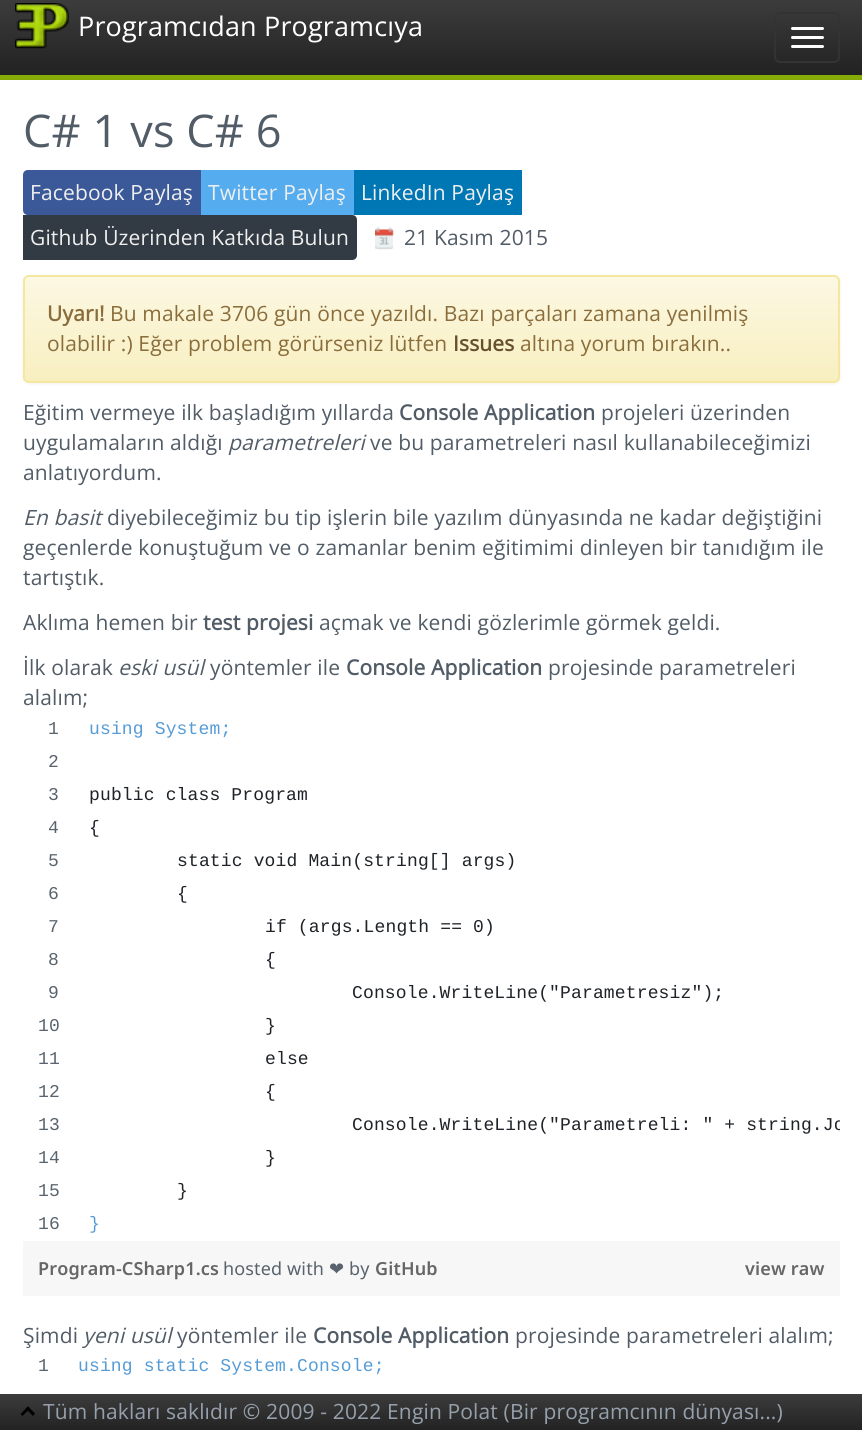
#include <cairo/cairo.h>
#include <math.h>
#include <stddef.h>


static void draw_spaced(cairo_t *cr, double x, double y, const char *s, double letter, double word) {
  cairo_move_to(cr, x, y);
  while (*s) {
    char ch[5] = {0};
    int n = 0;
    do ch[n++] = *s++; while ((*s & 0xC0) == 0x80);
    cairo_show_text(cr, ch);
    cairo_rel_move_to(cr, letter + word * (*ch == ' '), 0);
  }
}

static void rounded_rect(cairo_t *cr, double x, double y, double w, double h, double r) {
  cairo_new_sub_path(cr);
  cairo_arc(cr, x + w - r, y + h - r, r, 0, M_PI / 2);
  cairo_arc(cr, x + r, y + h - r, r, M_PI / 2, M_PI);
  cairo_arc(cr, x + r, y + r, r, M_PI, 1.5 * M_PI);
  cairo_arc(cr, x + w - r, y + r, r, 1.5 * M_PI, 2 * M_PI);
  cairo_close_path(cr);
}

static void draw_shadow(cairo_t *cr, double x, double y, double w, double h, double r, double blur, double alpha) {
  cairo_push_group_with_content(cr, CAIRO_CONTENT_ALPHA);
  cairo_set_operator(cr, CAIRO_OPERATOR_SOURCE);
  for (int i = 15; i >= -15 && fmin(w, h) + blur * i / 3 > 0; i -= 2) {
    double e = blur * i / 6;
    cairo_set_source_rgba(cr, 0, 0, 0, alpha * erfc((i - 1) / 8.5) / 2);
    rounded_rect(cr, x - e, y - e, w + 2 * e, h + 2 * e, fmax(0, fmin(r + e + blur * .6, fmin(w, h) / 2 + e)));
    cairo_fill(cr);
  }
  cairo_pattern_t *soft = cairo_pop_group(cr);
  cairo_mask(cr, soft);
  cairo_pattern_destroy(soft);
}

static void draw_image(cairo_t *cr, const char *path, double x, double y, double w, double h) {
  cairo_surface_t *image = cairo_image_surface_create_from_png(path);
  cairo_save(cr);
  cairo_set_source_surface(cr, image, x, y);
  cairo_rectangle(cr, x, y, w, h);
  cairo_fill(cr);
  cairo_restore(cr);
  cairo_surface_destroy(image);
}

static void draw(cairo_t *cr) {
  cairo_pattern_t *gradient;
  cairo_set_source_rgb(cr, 1, 1, 1);
  cairo_paint(cr);
  gradient = cairo_pattern_create_linear(431, 0, 431, 75);
  cairo_pattern_add_color_stop_rgba(gradient, 0, 60 / 255.0, 60 / 255.0, 60 / 255.0, 1);
  cairo_pattern_add_color_stop_rgba(gradient, 1, 34 / 255.0, 34 / 255.0, 34 / 255.0, 1);
  cairo_set_source(cr, gradient);
  cairo_pattern_destroy(gradient);
  cairo_rectangle(cr, 0, 0, 862, 75);
  cairo_fill(cr);
  cairo_set_source_rgb(cr, 134 / 255.0, 171 / 255.0, 8 / 255.0);
  cairo_rectangle(cr, 0, 75, 862, 5);
  cairo_fill(cr);
  draw_image(cr, "images/1.png", 15, 3, 54, 46);
  rounded_rect(cr, 775, 13, 64, 49, 5);
  cairo_set_source_rgb(cr, 51 / 255.0, 51 / 255.0, 51 / 255.0);
  cairo_stroke(cr);
  cairo_set_source_rgb(cr, 1, 1, 1);
  rounded_rect(cr, 791, 27, 33, 3, 1.5);
  cairo_fill(cr);
  rounded_rect(cr, 791, 36, 33, 3, 1.5);
  cairo_fill(cr);
  rounded_rect(cr, 791, 45, 33, 3, 1.5);
  cairo_fill(cr);
  cairo_set_source_rgb(cr, 59 / 255.0, 89 / 255.0, 152 / 255.0);
  cairo_new_path(cr);
  cairo_move_to(cr, 28, 170);
  cairo_line_to(cr, 201, 170);
  cairo_line_to(cr, 201, 215);
  cairo_line_to(cr, 28, 215);
  cairo_curve_to(cr, 25, 215, 23, 213, 23, 210);
  cairo_line_to(cr, 23, 175);
  cairo_curve_to(cr, 23, 172, 25, 170, 28, 170);
  cairo_close_path(cr);
  cairo_fill(cr);
  cairo_set_source_rgb(cr, 85 / 255.0, 172 / 255.0, 238 / 255.0);
  cairo_rectangle(cr, 201, 170, 153, 45);
  cairo_fill(cr);
  cairo_set_source_rgb(cr, 0, 119 / 255.0, 181 / 255.0);
  cairo_rectangle(cr, 354, 170, 168, 45);
  cairo_fill(cr);
  cairo_set_source_rgb(cr, 50 / 255.0, 59 / 255.0, 67 / 255.0);
  cairo_new_path(cr);
  cairo_move_to(cr, 23, 215);
  cairo_line_to(cr, 352, 215);
  cairo_curve_to(cr, 355, 215, 357, 217, 357, 220);
  cairo_line_to(cr, 357, 255);
  cairo_curve_to(cr, 357, 258, 355, 260, 352, 260);
  cairo_line_to(cr, 23, 260);
  cairo_close_path(cr);
  cairo_fill(cr);
  draw_image(cr, "images/2.png", 375, 226, 19, 24);
  cairo_set_source_rgb(cr, 0, 0, 0);
  draw_shadow(cr, 23, 276, 817, 108, 6, 1.5, 0.05);
  cairo_save(cr);
  rounded_rect(cr, 23, 275, 817, 108, 6);
  cairo_clip(cr);
  gradient = cairo_pattern_create_linear(431, 276, 431, 381);
  cairo_pattern_add_color_stop_rgba(gradient, 0, 252 / 255.0, 248 / 255.0, 227 / 255.0, 1);
  cairo_pattern_add_color_stop_rgba(gradient, 1, 248 / 255.0, 239 / 255.0, 192 / 255.0, 1);
  cairo_set_source(cr, gradient);
  cairo_pattern_destroy(gradient);
  cairo_rectangle(cr, 23, 276, 817, 105);
  cairo_fill(cr);
  cairo_restore(cr);
  cairo_set_source_rgba(cr, 1, 1, 1, 0.25);
  cairo_new_path(cr);
  cairo_move_to(cr, 28, 278);
  cairo_line_to(cr, 834, 278);
  cairo_curve_to(cr, 836, 278, 838, 280, 838, 282);
  cairo_line_to(cr, 838, 379);
  cairo_curve_to(cr, 839, 378, 839, 377, 839, 376);
  cairo_line_to(cr, 839, 281);
  cairo_curve_to(cr, 839, 278, 837, 276, 834, 276);
  cairo_line_to(cr, 29, 276);
  cairo_curve_to(cr, 26, 276, 24, 278, 24, 281);
  cairo_line_to(cr, 24, 282);
  cairo_curve_to(cr, 24, 280, 26, 278, 28, 278);
  cairo_close_path(cr);
  cairo_fill(cr);
  rounded_rect(cr, 24, 276, 815, 106, 5);
  cairo_set_source_rgb(cr, 245 / 255.0, 231 / 255.0, 158 / 255.0);
  cairo_stroke(cr);
  cairo_set_source_rgb(cr, 247 / 255.0, 247 / 255.0, 247 / 255.0);
  cairo_rectangle(cr, 23, 1241, 817, 55);
  cairo_fill(cr);
  gradient = cairo_pattern_create_linear(431, 1394, 431, 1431);
  cairo_pattern_add_color_stop_rgba(gradient, 0, 60 / 255.0, 60 / 255.0, 60 / 255.0, 1);
  cairo_pattern_add_color_stop_rgba(gradient, 1, 34 / 255.0, 34 / 255.0, 34 / 255.0, 1);
  cairo_set_source(cr, gradient);
  cairo_pattern_destroy(gradient);
  cairo_rectangle(cr, 0, 1394, 862, 36);
  cairo_fill(cr);
  cairo_set_source_rgb(cr, 0, 0, 0);
  cairo_new_path(cr);
  cairo_move_to(cr, 20.5, 1414);
  cairo_line_to(cr, 28, 1406.5);
  cairo_line_to(cr, 30, 1408.5);
  cairo_line_to(cr, 22.5, 1416);
  cairo_close_path(cr);
  cairo_fill(cr);
  cairo_new_path(cr);
  cairo_move_to(cr, 25.5, 1408.5);
  cairo_line_to(cr, 28, 1406.5);
  cairo_line_to(cr, 35, 1413.5);
  cairo_line_to(cr, 33, 1416);
  cairo_close_path(cr);
  cairo_fill(cr);
  cairo_select_font_face(cr, "Open Sans", CAIRO_FONT_SLANT_NORMAL, CAIRO_FONT_WEIGHT_NORMAL);
  cairo_set_font_size(cr, 27);
  cairo_set_source_rgb(cr, 1, 1, 1);
  draw_spaced(cr, 78, 36, "Programcıdan Programcıya", 0.15, 0);
  cairo_set_font_size(cr, 45);
  cairo_set_source_rgb(cr, 81 / 255.0, 92 / 255.0, 103 / 255.0);
  draw_spaced(cr, 23, 147, "C# 1 vs C# 6", 0.15, 0);
  cairo_set_font_size(cr, 21);
  cairo_set_source_rgb(cr, 239 / 255.0, 239 / 255.0, 239 / 255.0);
  draw_spaced(cr, 30, 200, "Facebook Paylaş", 0.15, 0);
  draw_spaced(cr, 208, 200, "Twitter Paylaş", 0.15, 0);
  draw_spaced(cr, 361, 200, "LinkedIn Paylaş", 0.15, 0);
  draw_spaced(cr, 30, 245, "Github Üzerinden Katkıda Bulun", 0.15, 0);
  cairo_set_source_rgb(cr, 81 / 255.0, 92 / 255.0, 103 / 255.0);
  draw_spaced(cr, 404, 245, "21 Kasım 2015", 0.15, 0);
  cairo_select_font_face(cr, "Open Sans", CAIRO_FONT_SLANT_NORMAL, CAIRO_FONT_WEIGHT_BOLD);
  cairo_set_source_rgb(cr, 138 / 255.0, 109 / 255.0, 59 / 255.0);
  draw_spaced(cr, 47, 321, "Uyarı!", 0.15, 0);
  cairo_select_font_face(cr, "Open Sans", CAIRO_FONT_SLANT_NORMAL, CAIRO_FONT_WEIGHT_NORMAL);
  draw_spaced(cr, 110, 321, "Bu makale 3706 gün önce yazıldı. Bazı parçaları zamana yenilmiş", 0.15, 0);
  draw_spaced(cr, 47, 351, "olabilir :) Eğer problem görürseniz lütfen", 0.15, 0);
  cairo_select_font_face(cr, "Open Sans", CAIRO_FONT_SLANT_NORMAL, CAIRO_FONT_WEIGHT_BOLD);
  cairo_set_source_rgb(cr, 102 / 255.0, 81 / 255.0, 44 / 255.0);
  draw_spaced(cr, 453, 351, "Issues", 0.15, 0);
  cairo_select_font_face(cr, "Open Sans", CAIRO_FONT_SLANT_NORMAL, CAIRO_FONT_WEIGHT_NORMAL);
  cairo_set_source_rgb(cr, 138 / 255.0, 109 / 255.0, 59 / 255.0);
  draw_spaced(cr, 520, 351, "altına yorum bırakın..", 0.15, 0);
  cairo_set_source_rgb(cr, 81 / 255.0, 92 / 255.0, 103 / 255.0);
  draw_spaced(cr, 23, 420, "Eğitim vermeye ilk başladığım yıllarda", 0.15, 0);
  cairo_select_font_face(cr, "Open Sans", CAIRO_FONT_SLANT_NORMAL, CAIRO_FONT_WEIGHT_BOLD);
  draw_spaced(cr, 399, 420, "Console Application", 0.15, 0);
  cairo_select_font_face(cr, "Open Sans", CAIRO_FONT_SLANT_NORMAL, CAIRO_FONT_WEIGHT_NORMAL);
  draw_spaced(cr, 601, 420, "projeleri üzerinden", 0.15, 0);
  draw_spaced(cr, 23, 450, "uygulamaların aldığı", 0.15, 0);
  cairo_select_font_face(cr, "Open Sans", CAIRO_FONT_SLANT_ITALIC, CAIRO_FONT_WEIGHT_NORMAL);
  draw_spaced(cr, 228, 450, "parametreleri", 0.15, 0);
  cairo_select_font_face(cr, "Open Sans", CAIRO_FONT_SLANT_NORMAL, CAIRO_FONT_WEIGHT_NORMAL);
  draw_spaced(cr, 370, 450, "ve bu parametreleri nasıl kullanabileceğimizi", 0.15, 0);
  draw_spaced(cr, 23, 480, "anlatıyordum.", 0.15, 0);
  cairo_select_font_face(cr, "Open Sans", CAIRO_FONT_SLANT_ITALIC, CAIRO_FONT_WEIGHT_NORMAL);
  draw_spaced(cr, 23, 525, "En basit", 0.15, 0);
  cairo_select_font_face(cr, "Open Sans", CAIRO_FONT_SLANT_NORMAL, CAIRO_FONT_WEIGHT_NORMAL);
  draw_spaced(cr, 107, 525, "diyebileceğimiz bu tip işlerin bile yazılım dünyasında ne kadar değiştiğini", 0.15, 0);
  draw_spaced(cr, 23, 555, "geçenlerde konuştuğum ve o zamanlar benim eğitimimi dinleyen bir tanıdığım ile", 0.15, 0);
  draw_spaced(cr, 23, 585, "tartıştık.", 0.15, 0);
  draw_spaced(cr, 23, 630, "Aklıma hemen bir", 0.15, 0);
  cairo_select_font_face(cr, "Open Sans", CAIRO_FONT_SLANT_NORMAL, CAIRO_FONT_WEIGHT_BOLD);
  draw_spaced(cr, 203, 630, "test projesi", 0.15, 0);
  cairo_select_font_face(cr, "Open Sans", CAIRO_FONT_SLANT_NORMAL, CAIRO_FONT_WEIGHT_NORMAL);
  draw_spaced(cr, 319, 630, "açmak ve kendi gözlerimle görmek geldi.", 0.15, 0);
  draw_spaced(cr, 23, 675, "İlk olarak", 0.15, 0);
  cairo_select_font_face(cr, "Open Sans", CAIRO_FONT_SLANT_ITALIC, CAIRO_FONT_WEIGHT_NORMAL);
  draw_spaced(cr, 118, 675, "eski usül", 0.15, 0);
  cairo_select_font_face(cr, "Open Sans", CAIRO_FONT_SLANT_NORMAL, CAIRO_FONT_WEIGHT_NORMAL);
  draw_spaced(cr, 210, 675, "yöntemler ile", 0.15, 0);
  cairo_select_font_face(cr, "Open Sans", CAIRO_FONT_SLANT_NORMAL, CAIRO_FONT_WEIGHT_BOLD);
  draw_spaced(cr, 346, 675, "Console Application", 0.15, 0);
  cairo_select_font_face(cr, "Open Sans", CAIRO_FONT_SLANT_NORMAL, CAIRO_FONT_WEIGHT_NORMAL);
  draw_spaced(cr, 548, 675, "projesinde parametreleri", 0.15, 0);
  draw_spaced(cr, 23, 705, "alalım;", 0.15, 0);
  cairo_select_font_face(cr, "Liberation Mono", CAIRO_FONT_SLANT_NORMAL, CAIRO_FONT_WEIGHT_NORMAL);
  cairo_set_font_size(cr, 18);
  cairo_set_source_rgb(cr, 89 / 255.0, 99 / 255.0, 110 / 255.0);
  draw_spaced(cr, 48, 734, "1", 0.15, 0);
  cairo_set_source_rgb(cr, 86 / 255.0, 156 / 255.0, 214 / 255.0);
  draw_spaced(cr, 89, 734, "using System;", 0.15, 0);
  cairo_set_source_rgb(cr, 89 / 255.0, 99 / 255.0, 110 / 255.0);
  draw_spaced(cr, 48, 767, "2", 0.15, 0);
  draw_spaced(cr, 48, 800, "3", 0.15, 0);
  cairo_set_source_rgb(cr, 31 / 255.0, 35 / 255.0, 40 / 255.0);
  draw_spaced(cr, 89, 800, "public class Program", 0.15, 0);
  cairo_set_source_rgb(cr, 89 / 255.0, 99 / 255.0, 110 / 255.0);
  draw_spaced(cr, 48, 833, "4", 0.15, 0);
  cairo_set_source_rgb(cr, 31 / 255.0, 35 / 255.0, 40 / 255.0);
  draw_spaced(cr, 89, 833, "{", 0.15, 0);
  cairo_set_source_rgb(cr, 89 / 255.0, 99 / 255.0, 110 / 255.0);
  draw_spaced(cr, 48, 866, "5", 0.15, 0);
  cairo_set_source_rgb(cr, 31 / 255.0, 35 / 255.0, 40 / 255.0);
  draw_spaced(cr, 177, 866, "static void Main(string[] args)", 0.15, 0);
  cairo_set_source_rgb(cr, 89 / 255.0, 99 / 255.0, 110 / 255.0);
  draw_spaced(cr, 48, 899, "6", 0.15, 0);
  cairo_set_source_rgb(cr, 31 / 255.0, 35 / 255.0, 40 / 255.0);
  draw_spaced(cr, 177, 899, "{", 0.15, 0);
  cairo_set_source_rgb(cr, 89 / 255.0, 99 / 255.0, 110 / 255.0);
  draw_spaced(cr, 48, 932, "7", 0.15, 0);
  cairo_set_source_rgb(cr, 31 / 255.0, 35 / 255.0, 40 / 255.0);
  draw_spaced(cr, 265, 932, "if (args.Length == 0)", 0.15, 0);
  cairo_set_source_rgb(cr, 89 / 255.0, 99 / 255.0, 110 / 255.0);
  draw_spaced(cr, 48, 965, "8", 0.15, 0);
  cairo_set_source_rgb(cr, 31 / 255.0, 35 / 255.0, 40 / 255.0);
  draw_spaced(cr, 265, 965, "{", 0.15, 0);
  cairo_set_source_rgb(cr, 89 / 255.0, 99 / 255.0, 110 / 255.0);
  draw_spaced(cr, 48, 998, "9", 0.15, 0);
  cairo_set_source_rgb(cr, 31 / 255.0, 35 / 255.0, 40 / 255.0);
  draw_spaced(cr, 352, 998, "Console.WriteLine(\"Parametresiz\");", 0.15, 0);
  cairo_set_source_rgb(cr, 89 / 255.0, 99 / 255.0, 110 / 255.0);
  draw_spaced(cr, 38, 1031, "10", 0.15, 0);
  cairo_set_source_rgb(cr, 31 / 255.0, 35 / 255.0, 40 / 255.0);
  draw_spaced(cr, 265, 1031, "}", 0.15, 0);
  cairo_set_source_rgb(cr, 89 / 255.0, 99 / 255.0, 110 / 255.0);
  draw_spaced(cr, 38, 1064, "11", 0.15, 0);
  cairo_set_source_rgb(cr, 31 / 255.0, 35 / 255.0, 40 / 255.0);
  draw_spaced(cr, 265, 1064, "else", 0.15, 0);
  cairo_set_source_rgb(cr, 89 / 255.0, 99 / 255.0, 110 / 255.0);
  draw_spaced(cr, 38, 1097, "12", 0.15, 0);
  cairo_set_source_rgb(cr, 31 / 255.0, 35 / 255.0, 40 / 255.0);
  draw_spaced(cr, 265, 1097, "{", 0.15, 0);
  cairo_set_source_rgb(cr, 89 / 255.0, 99 / 255.0, 110 / 255.0);
  draw_spaced(cr, 38, 1130, "13", 0.15, 0);
  cairo_save(cr);
  cairo_rectangle(cr, 23, 713, 817, 528);
  cairo_clip(cr);
  cairo_set_source_rgb(cr, 31 / 255.0, 35 / 255.0, 40 / 255.0);
  draw_spaced(cr, 352, 1130, "Console.WriteLine(\"Parametreli: \" + string.Jo", 0.15, 0);
  cairo_restore(cr);
  draw_spaced(cr, 38, 1163, "14", 0.15, 0);
  cairo_set_source_rgb(cr, 31 / 255.0, 35 / 255.0, 40 / 255.0);
  draw_spaced(cr, 265, 1163, "}", 0.15, 0);
  cairo_set_source_rgb(cr, 89 / 255.0, 99 / 255.0, 110 / 255.0);
  draw_spaced(cr, 38, 1196, "15", 0.15, 0);
  cairo_set_source_rgb(cr, 31 / 255.0, 35 / 255.0, 40 / 255.0);
  draw_spaced(cr, 177, 1196, "}", 0.15, 0);
  cairo_set_source_rgb(cr, 89 / 255.0, 99 / 255.0, 110 / 255.0);
  draw_spaced(cr, 38, 1229, "16", 0.15, 0);
  cairo_set_source_rgb(cr, 86 / 255.0, 156 / 255.0, 214 / 255.0);
  draw_spaced(cr, 89, 1229, "}", 0.15, 0);
  cairo_select_font_face(cr, "Noto Sans SemiBold", CAIRO_FONT_SLANT_NORMAL, CAIRO_FONT_WEIGHT_NORMAL);
  cairo_set_source_rgb(cr, 102 / 255.0, 102 / 255.0, 102 / 255.0);
  draw_spaced(cr, 38, 1275, "Program-CSharp1.cs", 0.15, 0);
  cairo_select_font_face(cr, "Noto Sans", CAIRO_FONT_SLANT_NORMAL, CAIRO_FONT_WEIGHT_NORMAL);
  cairo_set_source_rgb(cr, 89 / 255.0, 99 / 255.0, 110 / 255.0);
  draw_spaced(cr, 223, 1275, "hosted with", 0.15, 0);
  cairo_select_font_face(cr, "DejaVu Sans", CAIRO_FONT_SLANT_NORMAL, CAIRO_FONT_WEIGHT_NORMAL);
  draw_spaced(cr, 329, 1275, "❤", 0.15, 0);
  cairo_select_font_face(cr, "Noto Sans", CAIRO_FONT_SLANT_NORMAL, CAIRO_FONT_WEIGHT_NORMAL);
  draw_spaced(cr, 349, 1275, "by", 0.15, 0);
  cairo_select_font_face(cr, "Noto Sans SemiBold", CAIRO_FONT_SLANT_NORMAL, CAIRO_FONT_WEIGHT_NORMAL);
  cairo_set_source_rgb(cr, 102 / 255.0, 102 / 255.0, 102 / 255.0);
  draw_spaced(cr, 375, 1275, "GitHub", 0.15, 0);
  draw_spaced(cr, 745, 1275, "view raw", 0.15, 0);
  cairo_select_font_face(cr, "Open Sans", CAIRO_FONT_SLANT_NORMAL, CAIRO_FONT_WEIGHT_NORMAL);
  cairo_set_font_size(cr, 21);
  cairo_set_source_rgb(cr, 81 / 255.0, 92 / 255.0, 103 / 255.0);
  draw_spaced(cr, 23, 1343, "Şimdi", 0.15, 0);
  cairo_select_font_face(cr, "Open Sans", CAIRO_FONT_SLANT_ITALIC, CAIRO_FONT_WEIGHT_NORMAL);
  draw_spaced(cr, 83, 1343, "yeni usül", 0.15, 0);
  cairo_select_font_face(cr, "Open Sans", CAIRO_FONT_SLANT_NORMAL, CAIRO_FONT_WEIGHT_NORMAL);
  draw_spaced(cr, 177, 1343, "yöntemler ile", 0.15, 0);
  cairo_select_font_face(cr, "Open Sans", CAIRO_FONT_SLANT_NORMAL, CAIRO_FONT_WEIGHT_BOLD);
  draw_spaced(cr, 313, 1343, "Console Application", 0.15, 0);
  cairo_select_font_face(cr, "Open Sans", CAIRO_FONT_SLANT_NORMAL, CAIRO_FONT_WEIGHT_NORMAL);
  draw_spaced(cr, 515, 1343, "projesinde parametreleri alalım;", 0.15, 0);
  cairo_select_font_face(cr, "Liberation Mono", CAIRO_FONT_SLANT_NORMAL, CAIRO_FONT_WEIGHT_NORMAL);
  cairo_set_font_size(cr, 18);
  cairo_set_source_rgb(cr, 89 / 255.0, 99 / 255.0, 110 / 255.0);
  draw_spaced(cr, 38, 1371, "1", 0.15, 0);
  cairo_set_source_rgb(cr, 86 / 255.0, 156 / 255.0, 214 / 255.0);
  draw_spaced(cr, 78, 1371, "using static System.Console;", 0.15, 0);
  cairo_select_font_face(cr, "Open Sans", CAIRO_FONT_SLANT_NORMAL, CAIRO_FONT_WEIGHT_NORMAL);
  cairo_set_font_size(cr, 21);
  cairo_set_source_rgb(cr, 149 / 255.0, 160 / 255.0, 172 / 255.0);
  draw_spaced(cr, 43, 1419, "Tüm hakları saklıdır © 2009 - 2022 Engin Polat (Bir programcının dünyası...)", 0.15, 0);
}

int main(void) {
  cairo_surface_t *surface = cairo_image_surface_create(CAIRO_FORMAT_RGB24, 862, 1430);
  cairo_t *cr = cairo_create(surface);
  cairo_font_options_t *options = cairo_font_options_create();
  cairo_font_options_set_hint_metrics(options, CAIRO_HINT_METRICS_OFF);
  cairo_font_options_set_hint_style(options, CAIRO_HINT_STYLE_NONE);
  cairo_set_font_options(cr, options);
  cairo_set_miter_limit(cr, 4);
  draw(cr);
  cairo_surface_write_to_png(surface, "out.png");
  cairo_font_options_destroy(options);
  cairo_destroy(cr);
  cairo_surface_destroy(surface);
  return 0;
}
